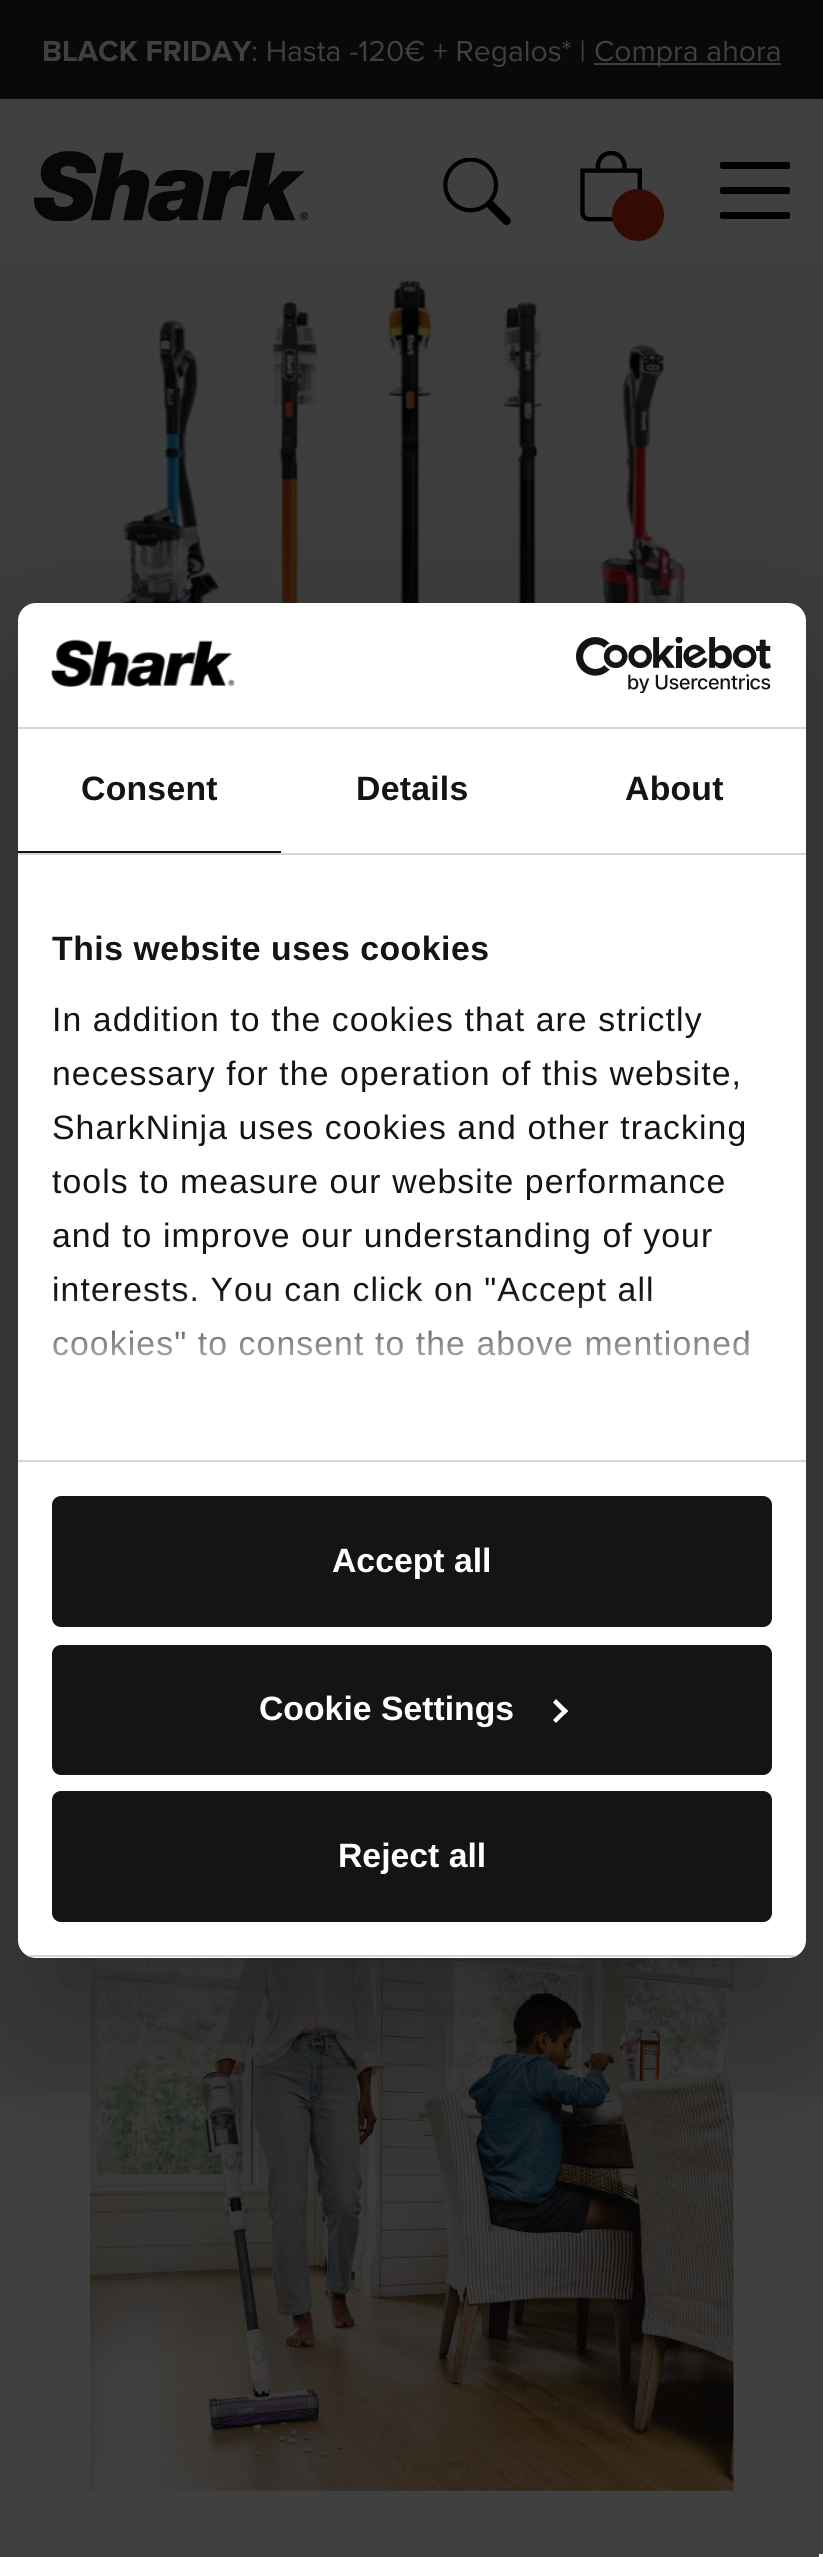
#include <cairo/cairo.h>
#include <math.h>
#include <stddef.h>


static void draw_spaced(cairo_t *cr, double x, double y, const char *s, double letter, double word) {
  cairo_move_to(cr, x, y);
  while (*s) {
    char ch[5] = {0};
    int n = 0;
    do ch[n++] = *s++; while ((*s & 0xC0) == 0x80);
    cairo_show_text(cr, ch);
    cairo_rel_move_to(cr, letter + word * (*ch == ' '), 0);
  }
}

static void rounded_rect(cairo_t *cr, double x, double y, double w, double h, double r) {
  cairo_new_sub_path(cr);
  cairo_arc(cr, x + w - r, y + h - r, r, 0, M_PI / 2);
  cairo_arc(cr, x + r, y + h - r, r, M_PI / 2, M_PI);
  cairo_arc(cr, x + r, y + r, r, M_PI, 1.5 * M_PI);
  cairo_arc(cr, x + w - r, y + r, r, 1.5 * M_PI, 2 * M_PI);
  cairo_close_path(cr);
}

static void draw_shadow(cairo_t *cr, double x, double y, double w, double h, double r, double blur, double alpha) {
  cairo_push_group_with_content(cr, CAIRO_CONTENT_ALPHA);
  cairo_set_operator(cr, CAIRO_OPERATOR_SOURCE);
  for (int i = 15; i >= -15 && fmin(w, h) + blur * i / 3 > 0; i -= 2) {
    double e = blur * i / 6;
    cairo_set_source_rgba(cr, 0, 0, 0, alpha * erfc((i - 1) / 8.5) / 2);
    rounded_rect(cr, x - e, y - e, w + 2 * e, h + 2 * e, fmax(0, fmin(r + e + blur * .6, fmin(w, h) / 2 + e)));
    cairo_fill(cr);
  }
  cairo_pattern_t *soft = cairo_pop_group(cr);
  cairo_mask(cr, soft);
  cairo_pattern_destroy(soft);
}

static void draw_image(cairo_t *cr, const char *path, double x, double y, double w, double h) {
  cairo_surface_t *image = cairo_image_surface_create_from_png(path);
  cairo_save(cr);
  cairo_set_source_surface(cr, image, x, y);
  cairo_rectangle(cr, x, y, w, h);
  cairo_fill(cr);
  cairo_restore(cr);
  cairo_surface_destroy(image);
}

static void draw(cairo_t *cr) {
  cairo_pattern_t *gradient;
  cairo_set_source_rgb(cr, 64 / 255.0, 64 / 255.0, 64 / 255.0);
  cairo_paint(cr);
  cairo_set_source_rgb(cr, 59 / 255.0, 59 / 255.0, 59 / 255.0);
  cairo_rectangle(cr, 0, 263, 823, 5);
  cairo_fill(cr);
  cairo_set_source_rgb(cr, 11 / 255.0, 8 / 255.0, 11 / 255.0);
  cairo_rectangle(cr, 0, 0, 823, 99);
  cairo_fill(cr);
  cairo_set_source_rgb(cr, 64 / 255.0, 64 / 255.0, 64 / 255.0);
  cairo_rectangle(cr, 594, 63, 187, 2);
  cairo_fill(cr);
  draw_image(cr, "images/1.png", 34, 151, 274, 70);
  draw_image(cr, "images/2.png", 443, 158, 68, 67);
  draw_image(cr, "images/3.png", 580, 151, 63, 71);
  cairo_set_source_rgb(cr, 52 / 255.0, 10 / 255.0, 4 / 255.0);
  cairo_arc(cr, 638, 215, 26, 0, 2 * M_PI);
  cairo_fill(cr);
  cairo_set_source_rgb(cr, 0, 0, 0);
  rounded_rect(cr, 720, 162, 70, 7, 2);
  cairo_fill(cr);
  rounded_rect(cr, 720, 187, 70, 7, 2);
  cairo_fill(cr);
  rounded_rect(cr, 720, 212, 70, 7, 2);
  cairo_fill(cr);
  cairo_set_source_rgb(cr, 61 / 255.0, 61 / 255.0, 61 / 255.0);
  cairo_rectangle(cr, 0, 268, 823, 1827);
  cairo_fill(cr);
  draw_image(cr, "images/4.png", 82, 280, 644, 323);
  draw_image(cr, "images/5.png", 90, 1958, 644, 533);
  cairo_set_source_rgb(cr, 0, 0, 0);
  draw_shadow(cr, 18, 675, 788, 1355, 18, 76.5, 0.3);
  cairo_set_source_rgb(cr, 1, 1, 1);
  rounded_rect(cr, 18, 603, 788, 1355, 18);
  cairo_fill(cr);
  cairo_set_source_rgb(cr, 214 / 255.0, 214 / 255.0, 214 / 255.0);
  cairo_rectangle(cr, 18, 727, 788, 2);
  cairo_fill(cr);
  draw_image(cr, "images/6.png", 51, 639, 184, 48);
  draw_image(cr, "images/7.png", 576, 637, 195, 56);
  cairo_rectangle(cr, 18, 853, 788, 2);
  cairo_fill(cr);
  cairo_set_source_rgb(cr, 20 / 255.0, 20 / 255.0, 20 / 255.0);
  cairo_rectangle(cr, 18, 851, 263, 2);
  cairo_fill(cr);
  cairo_set_source_rgb(cr, 214 / 255.0, 214 / 255.0, 214 / 255.0);
  cairo_rectangle(cr, 18, 1460, 788, 2);
  cairo_fill(cr);
  cairo_save(cr);
  rounded_rect(cr, 18, 603, 788, 1355, 18);
  cairo_clip(cr);
  cairo_rectangle(cr, 18, 1955, 788, 2);
  cairo_fill(cr);
  cairo_restore(cr);
  cairo_set_source_rgb(cr, 20 / 255.0, 20 / 255.0, 20 / 255.0);
  rounded_rect(cr, 54.5, 1498.5, 715, 126, 6.5);
  cairo_fill_preserve(cr);
  cairo_set_line_width(cr, 5);
  cairo_stroke(cr);
  rounded_rect(cr, 54.5, 1647.5, 715, 125, 6.5);
  cairo_fill_preserve(cr);
  cairo_stroke(cr);
  cairo_set_source_rgb(cr, 1, 1, 1);
  cairo_new_path(cr);
  cairo_move_to(cr, 556, 1699);
  cairo_line_to(cr, 568, 1711);
  cairo_line_to(cr, 565, 1714.5);
  cairo_line_to(cr, 553, 1702.5);
  cairo_close_path(cr);
  cairo_fill(cr);
  cairo_new_path(cr);
  cairo_move_to(cr, 565, 1708);
  cairo_line_to(cr, 568, 1711);
  cairo_line_to(cr, 556, 1723);
  cairo_line_to(cr, 553, 1720);
  cairo_close_path(cr);
  cairo_fill(cr);
  cairo_set_source_rgb(cr, 20 / 255.0, 20 / 255.0, 20 / 255.0);
  rounded_rect(cr, 54.5, 1793.5, 715, 126, 6.5);
  cairo_fill_preserve(cr);
  cairo_stroke(cr);
  cairo_set_source_rgb(cr, 245 / 255.0, 245 / 255.0, 245 / 255.0);
  cairo_rectangle(cr, 819, 2554, 4, 3);
  cairo_fill(cr);
  cairo_select_font_face(cr, "Proxima Nova", CAIRO_FONT_SLANT_NORMAL, CAIRO_FONT_WEIGHT_BOLD);
  cairo_set_font_size(cr, 30);
  cairo_set_source_rgb(cr, 64 / 255.0, 64 / 255.0, 64 / 255.0);
  cairo_move_to(cr, 42, 61);
  cairo_show_text(cr, "BLACK FRIDAY");
  cairo_select_font_face(cr, "Proxima Nova", CAIRO_FONT_SLANT_NORMAL, CAIRO_FONT_WEIGHT_NORMAL);
  cairo_move_to(cr, 251, 61);
  cairo_show_text(cr, ": Hasta -120€ + Regalos* |");
  cairo_move_to(cr, 594, 61);
  cairo_show_text(cr, "Compra ahora");
  cairo_select_font_face(cr, "Liberation Sans", CAIRO_FONT_SLANT_NORMAL, CAIRO_FONT_WEIGHT_BOLD);
  cairo_set_font_size(cr, 33.75);
  cairo_set_source_rgb(cr, 20 / 255.0, 20 / 255.0, 20 / 255.0);
  draw_spaced(cr, 81, 800, "Consent", 0.25, 0);
  draw_spaced(cr, 356, 800, "Details", 0.25, 0);
  draw_spaced(cr, 625, 800, "About", 0.25, 0);
  draw_spaced(cr, 52, 960, "This website uses cookies", 0.55, 0);
  cairo_select_font_face(cr, "Liberation Sans", CAIRO_FONT_SLANT_NORMAL, CAIRO_FONT_WEIGHT_NORMAL);
  draw_spaced(cr, 52, 1031, "In addition to the cookies that are strictly", 1.1, 0);
  draw_spaced(cr, 52, 1085, "necessary for the operation of this website,", 1.1, 0);
  draw_spaced(cr, 52, 1139, "SharkNinja uses cookies and other tracking", 1.1, 0);
  draw_spaced(cr, 52, 1193, "tools to measure our website performance", 1.1, 0);
  draw_spaced(cr, 52, 1247, "and to improve our understanding of your", 1.1, 0);
  draw_spaced(cr, 52, 1301, "interests. You can click on \"Accept all", 1.1, 0);
  draw_spaced(cr, 52, 1355, "cookies\" to consent to the above mentioned", 1.1, 0);
  gradient = cairo_pattern_create_linear(397, 1460, 397, 1291);
  cairo_pattern_add_color_stop_rgba(gradient, 0, 1, 1, 1, 1);
  cairo_pattern_add_color_stop_rgba(gradient, 0.5, 1, 1, 1, 0.8);
  cairo_pattern_add_color_stop_rgba(gradient, 1, 1, 1, 1, 0);
  cairo_set_source(cr, gradient);
  cairo_pattern_destroy(gradient);
  cairo_rectangle(cr, 53, 1293, 697, 63);
  cairo_fill(cr);
  cairo_select_font_face(cr, "Liberation Sans", CAIRO_FONT_SLANT_NORMAL, CAIRO_FONT_WEIGHT_BOLD);
  cairo_set_source_rgb(cr, 1, 1, 1);
  cairo_move_to(cr, 332, 1572);
  cairo_show_text(cr, "Accept all");
  cairo_move_to(cr, 259, 1720);
  cairo_show_text(cr, "Cookie Settings");
  cairo_move_to(cr, 338, 1867);
  cairo_show_text(cr, "Reject all");
}

int main(void) {
  cairo_surface_t *surface = cairo_image_surface_create(CAIRO_FORMAT_RGB24, 823, 2557);
  cairo_t *cr = cairo_create(surface);
  cairo_font_options_t *options = cairo_font_options_create();
  cairo_font_options_set_hint_metrics(options, CAIRO_HINT_METRICS_OFF);
  cairo_font_options_set_hint_style(options, CAIRO_HINT_STYLE_NONE);
  cairo_set_font_options(cr, options);
  cairo_set_miter_limit(cr, 4);
  draw(cr);
  cairo_surface_write_to_png(surface, "out.png");
  cairo_font_options_destroy(options);
  cairo_destroy(cr);
  cairo_surface_destroy(surface);
  return 0;
}
